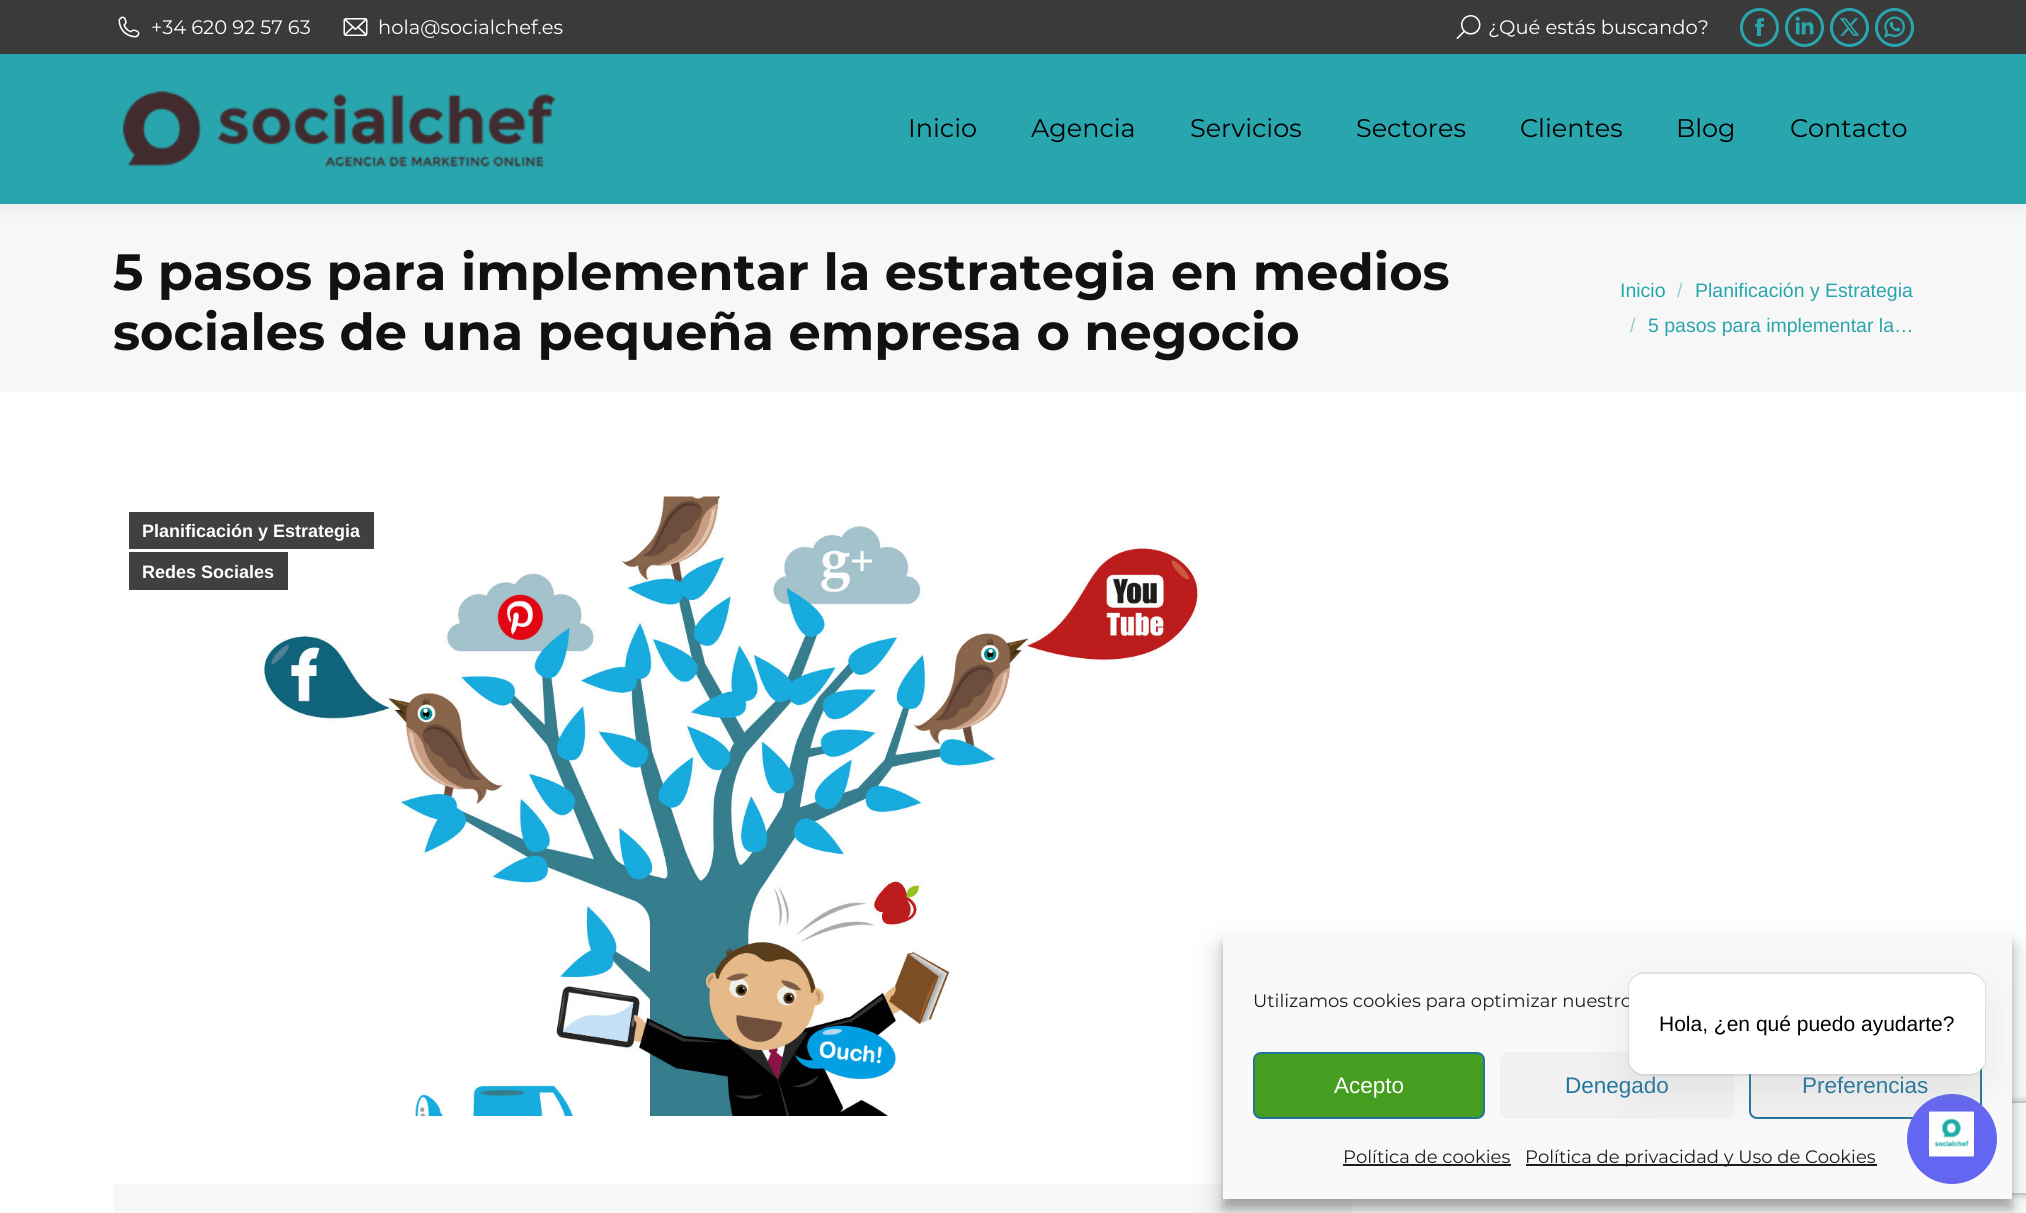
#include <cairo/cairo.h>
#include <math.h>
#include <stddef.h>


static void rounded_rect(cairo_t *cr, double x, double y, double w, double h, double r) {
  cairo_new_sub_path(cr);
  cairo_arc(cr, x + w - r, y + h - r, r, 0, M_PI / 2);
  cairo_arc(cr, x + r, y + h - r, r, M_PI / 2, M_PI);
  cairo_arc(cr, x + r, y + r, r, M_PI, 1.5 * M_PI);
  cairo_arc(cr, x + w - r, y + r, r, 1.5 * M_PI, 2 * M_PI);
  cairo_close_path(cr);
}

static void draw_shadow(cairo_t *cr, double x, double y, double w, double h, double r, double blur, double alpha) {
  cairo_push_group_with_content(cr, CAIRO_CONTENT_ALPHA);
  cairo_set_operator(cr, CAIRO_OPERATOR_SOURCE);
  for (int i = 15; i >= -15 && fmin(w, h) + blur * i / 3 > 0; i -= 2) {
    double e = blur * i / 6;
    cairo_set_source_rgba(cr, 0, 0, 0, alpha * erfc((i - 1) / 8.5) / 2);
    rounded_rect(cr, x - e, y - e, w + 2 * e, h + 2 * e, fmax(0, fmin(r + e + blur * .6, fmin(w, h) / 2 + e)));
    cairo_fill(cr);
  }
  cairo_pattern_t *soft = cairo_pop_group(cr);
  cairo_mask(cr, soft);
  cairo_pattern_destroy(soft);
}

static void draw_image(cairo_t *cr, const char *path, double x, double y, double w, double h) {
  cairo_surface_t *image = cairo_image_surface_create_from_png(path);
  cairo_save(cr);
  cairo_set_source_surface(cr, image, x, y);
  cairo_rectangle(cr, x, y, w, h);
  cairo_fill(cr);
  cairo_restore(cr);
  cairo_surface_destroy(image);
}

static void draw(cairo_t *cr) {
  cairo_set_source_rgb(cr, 1, 1, 1);
  cairo_paint(cr);
  cairo_set_source_rgb(cr, 247 / 255.0, 247 / 255.0, 247 / 255.0);
  cairo_rectangle(cr, 0, 204, 2026, 188);
  cairo_fill(cr);
  cairo_set_source_rgb(cr, 0, 0, 0);
  draw_shadow(cr, -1, -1, 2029, 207, 0, 11, 0.07);
  cairo_set_source_rgb(cr, 41 / 255.0, 166 / 255.0, 173 / 255.0);
  cairo_rectangle(cr, 0, 54, 2026, 150);
  cairo_fill(cr);
  cairo_set_source_rgb(cr, 58 / 255.0, 58 / 255.0, 58 / 255.0);
  cairo_rectangle(cr, 0, 0, 2026, 54);
  cairo_fill(cr);
  draw_image(cr, "images/1.png", 118, 16, 22, 22);
  draw_image(cr, "images/2.png", 343, 18, 25, 18);
  draw_image(cr, "images/3.png", 1456, 15, 25, 24);
  cairo_arc(cr, 1759.5, 27.5, 18, 0, 2 * M_PI);
  cairo_set_source_rgb(cr, 41 / 255.0, 166 / 255.0, 173 / 255.0);
  cairo_set_line_width(cr, 3);
  cairo_stroke(cr);
  draw_image(cr, "images/4.png", 1755, 18, 9, 18);
  cairo_arc(cr, 1804.5, 27.5, 18, 0, 2 * M_PI);
  cairo_stroke(cr);
  draw_image(cr, "images/5.png", 1795, 16, 19, 19);
  cairo_arc(cr, 1849.5, 27.5, 18, 0, 2 * M_PI);
  cairo_stroke(cr);
  draw_image(cr, "images/6.png", 1840, 18, 20, 18);
  cairo_arc(cr, 1894.5, 27.5, 18, 0, 2 * M_PI);
  cairo_stroke(cr);
  draw_image(cr, "images/7.png", 1884, 16, 21, 22);
  draw_image(cr, "images/8.png", 122, 91, 434, 76);
  draw_image(cr, "images/9.png", 261, 496, 941, 620);
  cairo_set_source_rgb(cr, 64 / 255.0, 64 / 255.0, 64 / 255.0);
  cairo_rectangle(cr, 129, 512, 245, 37);
  cairo_fill(cr);
  cairo_rectangle(cr, 129, 552, 159, 38);
  cairo_fill(cr);
  cairo_set_source_rgb(cr, 247 / 255.0, 247 / 255.0, 247 / 255.0);
  rounded_rect(cr, 114, 1184, 1238, 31, 1.5);
  cairo_fill(cr);
  cairo_set_source_rgb(cr, 0, 0, 0);
  draw_shadow(cr, 1223, 944, 789, 264, 0, 4.5, 0.23);
  draw_shadow(cr, 1223, 950, 789, 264, 0, 15, 0.19);
  cairo_save(cr);
  cairo_set_fill_rule(cr, CAIRO_FILL_RULE_EVEN_ODD);
  cairo_new_path(cr);
  cairo_move_to(cr, 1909, 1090);
  cairo_line_to(cr, 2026, 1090);
  cairo_line_to(cr, 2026, 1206);
  cairo_line_to(cr, 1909, 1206);
  cairo_close_path(cr);
  cairo_move_to(cr, 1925, 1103);
  cairo_line_to(cr, 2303, 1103);
  cairo_curve_to(cr, 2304.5, 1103, 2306, 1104.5, 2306, 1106);
  cairo_line_to(cr, 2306, 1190);
  cairo_curve_to(cr, 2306, 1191.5, 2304.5, 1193, 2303, 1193);
  cairo_line_to(cr, 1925, 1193);
  cairo_curve_to(cr, 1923.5, 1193, 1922, 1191.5, 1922, 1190);
  cairo_line_to(cr, 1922, 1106);
  cairo_curve_to(cr, 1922, 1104.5, 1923.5, 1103, 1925, 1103);
  cairo_close_path(cr);
  cairo_clip(cr);
  cairo_set_source_rgb(cr, 128 / 255.0, 128 / 255.0, 128 / 255.0);
  draw_shadow(cr, 1922, 1103, 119, 90, 3, 4, 1);
  cairo_restore(cr);
  cairo_set_source_rgb(cr, 249 / 255.0, 249 / 255.0, 249 / 255.0);
  cairo_rectangle(cr, 1223, 935, 789, 264);
  cairo_fill(cr);
  cairo_set_source_rgb(cr, 70 / 255.0, 158 / 255.0, 33 / 255.0);
  rounded_rect(cr, 1254, 1053, 230, 65, 7);
  cairo_fill_preserve(cr);
  cairo_set_source_rgb(cr, 33 / 255.0, 117 / 255.0, 155 / 255.0);
  cairo_set_line_width(cr, 2);
  cairo_stroke(cr);
  cairo_set_source_rgb(cr, 241 / 255.0, 241 / 255.0, 241 / 255.0);
  rounded_rect(cr, 1500, 1052, 234, 67, 8);
  cairo_fill(cr);
  rounded_rect(cr, 1750, 1053, 231, 65, 7);
  cairo_fill_preserve(cr);
  cairo_set_source_rgb(cr, 33 / 255.0, 117 / 255.0, 155 / 255.0);
  cairo_stroke(cr);
  cairo_set_source_rgb(cr, 25 / 255.0, 30 / 255.0, 35 / 255.0);
  cairo_rectangle(cr, 1343, 1164, 168, 2);
  cairo_fill(cr);
  cairo_rectangle(cr, 1526, 1164, 351, 2);
  cairo_fill(cr);
  cairo_set_source_rgb(cr, 99 / 255.0, 102 / 255.0, 241 / 255.0);
  cairo_arc(cr, 1952, 1139, 45, 0, 2 * M_PI);
  cairo_fill(cr);
  draw_image(cr, "images/10.png", 1929, 1111, 45, 46);
  cairo_select_font_face(cr, "Montserrat", CAIRO_FONT_SLANT_NORMAL, CAIRO_FONT_WEIGHT_NORMAL);
  cairo_set_font_size(cr, 19.5);
  cairo_set_source_rgb(cr, 1, 1, 1);
  cairo_move_to(cr, 151, 34);
  cairo_show_text(cr, "+34 620 92 57 63");
  cairo_move_to(cr, 378, 34);
  cairo_show_text(cr, "hola@socialchef.es");
  cairo_move_to(cr, 1488, 34);
  cairo_show_text(cr, "¿Qué estás buscando?");
  cairo_set_font_size(cr, 25.5);
  cairo_set_source_rgb(cr, 0, 0, 0);
  cairo_move_to(cr, 908, 137);
  cairo_show_text(cr, "Inicio");
  cairo_move_to(cr, 1031, 137);
  cairo_show_text(cr, "Agencia");
  cairo_move_to(cr, 1190, 137);
  cairo_show_text(cr, "Servicios");
  cairo_move_to(cr, 1356, 137);
  cairo_show_text(cr, "Sectores");
  cairo_move_to(cr, 1520, 137);
  cairo_show_text(cr, "Clientes");
  cairo_move_to(cr, 1676, 137);
  cairo_show_text(cr, "Blog");
  cairo_move_to(cr, 1790, 137);
  cairo_show_text(cr, "Contacto");
  cairo_select_font_face(cr, "Montserrat", CAIRO_FONT_SLANT_NORMAL, CAIRO_FONT_WEIGHT_BOLD);
  cairo_set_font_size(cr, 51);
  cairo_set_source_rgb(cr, 17 / 255.0, 17 / 255.0, 17 / 255.0);
  cairo_move_to(cr, 113, 290);
  cairo_show_text(cr, "5 pasos para implementar la estrategia en medios");
  cairo_move_to(cr, 113, 350);
  cairo_show_text(cr, "sociales de una pequeña empresa o negocio");
  cairo_select_font_face(cr, "Liberation Sans", CAIRO_FONT_SLANT_NORMAL, CAIRO_FONT_WEIGHT_NORMAL);
  cairo_set_font_size(cr, 19.5);
  cairo_set_source_rgb(cr, 41 / 255.0, 166 / 255.0, 173 / 255.0);
  cairo_move_to(cr, 1620, 297);
  cairo_show_text(cr, "Inicio");
  cairo_set_source_rgb(cr, 144 / 255.0, 207 / 255.0, 210 / 255.0);
  cairo_move_to(cr, 1677, 297);
  cairo_show_text(cr, "/");
  cairo_set_source_rgb(cr, 41 / 255.0, 166 / 255.0, 173 / 255.0);
  cairo_move_to(cr, 1695, 297);
  cairo_show_text(cr, "Planificación y Estrategia");
  cairo_set_source_rgb(cr, 144 / 255.0, 207 / 255.0, 210 / 255.0);
  cairo_move_to(cr, 1630, 332);
  cairo_show_text(cr, "/");
  cairo_set_source_rgb(cr, 41 / 255.0, 166 / 255.0, 173 / 255.0);
  cairo_move_to(cr, 1648, 332);
  cairo_show_text(cr, "5 pasos para implementar la…");
  cairo_select_font_face(cr, "Liberation Sans", CAIRO_FONT_SLANT_NORMAL, CAIRO_FONT_WEIGHT_BOLD);
  cairo_set_font_size(cr, 18);
  cairo_set_source_rgb(cr, 1, 1, 1);
  cairo_move_to(cr, 142, 537);
  cairo_show_text(cr, "Planificación y Estrategia");
  cairo_move_to(cr, 142, 578);
  cairo_show_text(cr, "Redes Sociales");
  cairo_select_font_face(cr, "Montserrat", CAIRO_FONT_SLANT_NORMAL, CAIRO_FONT_WEIGHT_NORMAL);
  cairo_set_source_rgb(cr, 25 / 255.0, 30 / 255.0, 35 / 255.0);
  cairo_move_to(cr, 1253, 1007);
  cairo_show_text(cr, "Utilizamos cookies para optimizar nuestro");
  cairo_select_font_face(cr, "Liberation Sans", CAIRO_FONT_SLANT_NORMAL, CAIRO_FONT_WEIGHT_NORMAL);
  cairo_set_font_size(cr, 22.5);
  cairo_set_source_rgb(cr, 1, 1, 1);
  cairo_move_to(cr, 1334, 1093);
  cairo_show_text(cr, "Acepto");
  cairo_set_source_rgb(cr, 33 / 255.0, 117 / 255.0, 155 / 255.0);
  cairo_move_to(cr, 1565, 1093);
  cairo_show_text(cr, "Denegado");
  cairo_move_to(cr, 1802, 1093);
  cairo_show_text(cr, "Preferencias");
  cairo_select_font_face(cr, "Montserrat", CAIRO_FONT_SLANT_NORMAL, CAIRO_FONT_WEIGHT_NORMAL);
  cairo_set_font_size(cr, 18);
  cairo_set_source_rgb(cr, 25 / 255.0, 30 / 255.0, 35 / 255.0);
  cairo_move_to(cr, 1343, 1163);
  cairo_show_text(cr, "Política de cookies");
  cairo_move_to(cr, 1525, 1163);
  cairo_show_text(cr, "Política de privacidad y Uso de Cookies");
  rounded_rect(cr, 1629, 973, 356, 102, 16);
  cairo_set_source_rgba(cr, 150 / 255.0, 150 / 255.0, 150 / 255.0, 0.2);
  cairo_stroke(cr);
  cairo_set_source_rgb(cr, 150 / 255.0, 150 / 255.0, 150 / 255.0);
  draw_shadow(cr, 1629, 989, 356, 100, 15, 22.5, 0.2);
  cairo_set_source_rgb(cr, 1, 1, 1);
  rounded_rect(cr, 1629, 974, 356, 100, 15);
  cairo_fill(cr);
  cairo_select_font_face(cr, "Liberation Sans", CAIRO_FONT_SLANT_NORMAL, CAIRO_FONT_WEIGHT_NORMAL);
  cairo_set_font_size(cr, 21);
  cairo_set_source_rgb(cr, 0, 0, 0);
  cairo_move_to(cr, 1659, 1031);
  cairo_show_text(cr, "Hola, ¿en qué puedo ayudarte?");
}

int main(void) {
  cairo_surface_t *surface = cairo_image_surface_create(CAIRO_FORMAT_RGB24, 2026, 1213);
  cairo_t *cr = cairo_create(surface);
  cairo_font_options_t *options = cairo_font_options_create();
  cairo_font_options_set_hint_metrics(options, CAIRO_HINT_METRICS_OFF);
  cairo_font_options_set_hint_style(options, CAIRO_HINT_STYLE_NONE);
  cairo_set_font_options(cr, options);
  cairo_set_miter_limit(cr, 4);
  draw(cr);
  cairo_surface_write_to_png(surface, "out.png");
  cairo_font_options_destroy(options);
  cairo_destroy(cr);
  cairo_surface_destroy(surface);
  return 0;
}
